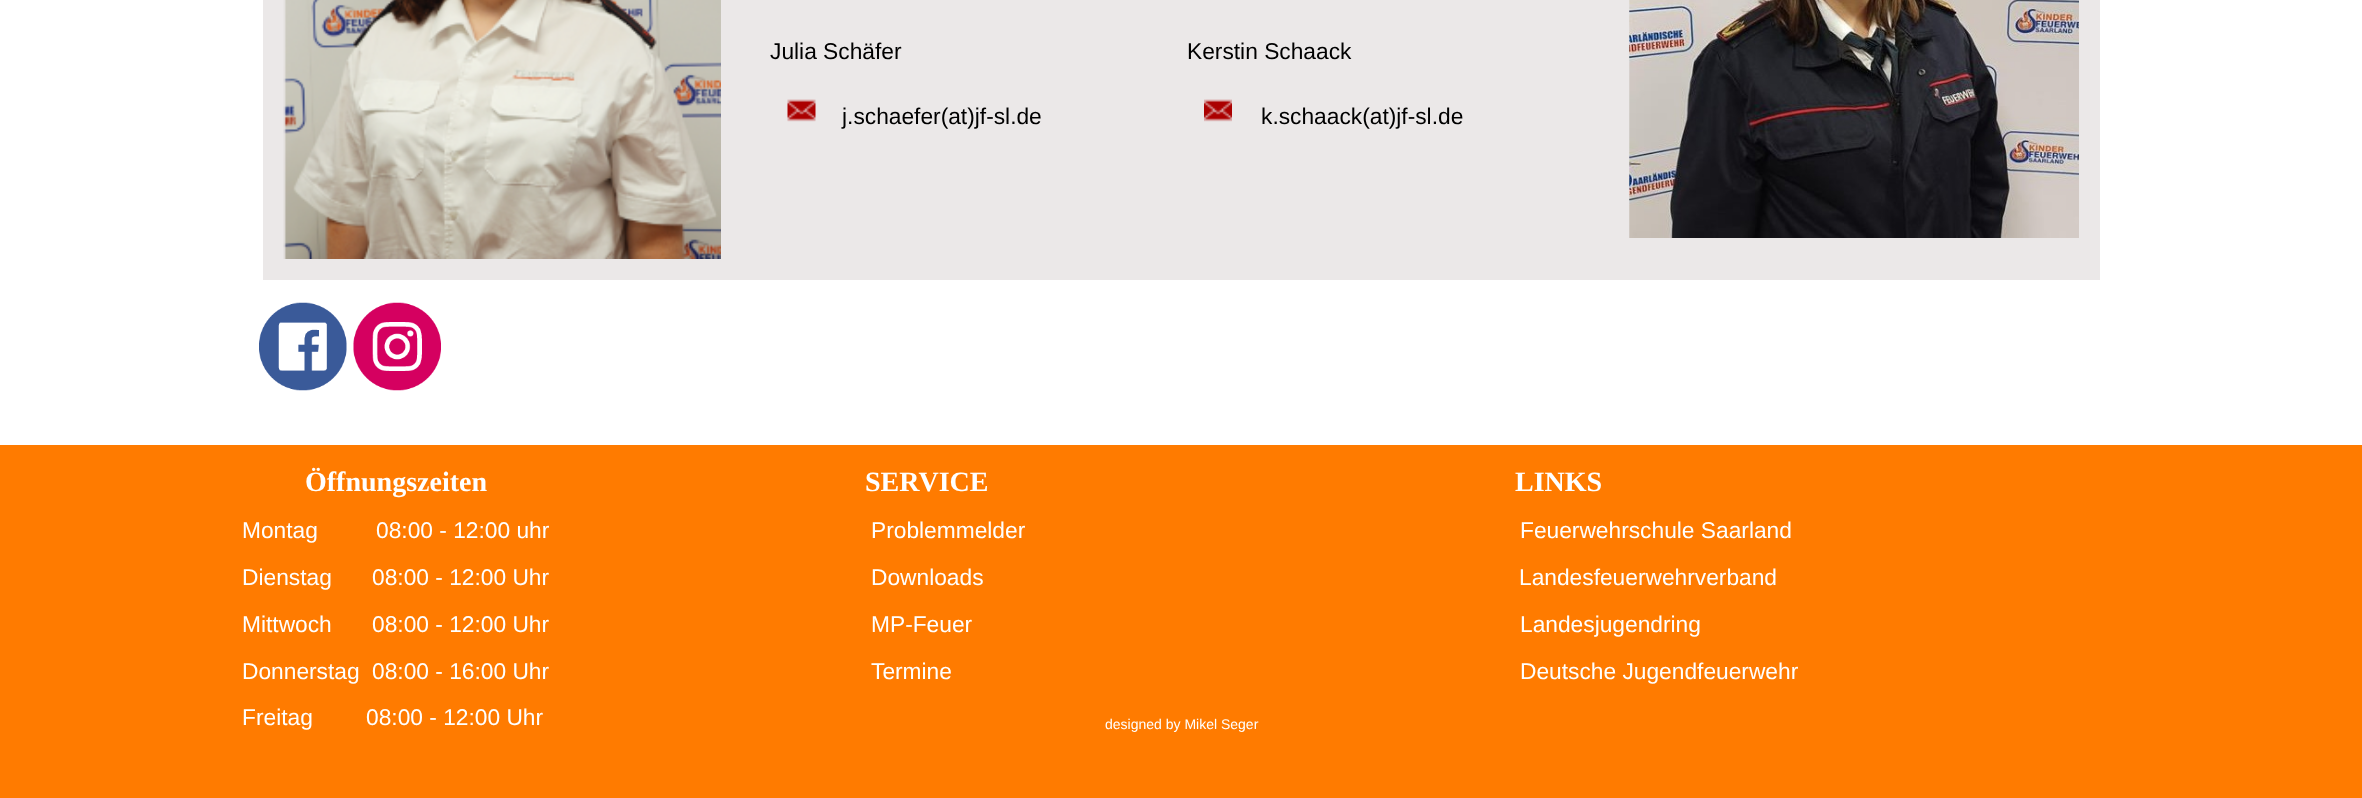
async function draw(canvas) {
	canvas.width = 2362;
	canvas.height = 798;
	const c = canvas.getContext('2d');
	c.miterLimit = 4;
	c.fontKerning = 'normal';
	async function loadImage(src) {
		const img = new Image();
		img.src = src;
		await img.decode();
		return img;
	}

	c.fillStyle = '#fff';
	c.fillRect(0, 0, 2362, 798);
	c.fillStyle = '#ebe8e8';
	c.fillRect(263, 0, 1837, 280);
	c.drawImage(await loadImage('img1.png'), 283, 0, 438, 259);
	c.font = '22.75px Liberation Sans';
	c.fillStyle = '#000';
	c.fillText('Julia Schäfer', 770, 59);
	c.drawImage(await loadImage('img2.png'), 787, 99, 29, 23);
	c.fillText('j.schaefer(at)jf-sl.de', 842, 124);
	c.fillText('Kerstin Schaack', 1187, 59);
	c.drawImage(await loadImage('img3.png'), 1204, 99, 28, 23);
	c.fillText('k.schaack(at)jf-sl.de', 1261, 124);
	c.drawImage(await loadImage('img4.png'), 1629, 0, 450, 238);
	c.drawImage(await loadImage('img5.png'), 259, 302, 88, 89);
	c.drawImage(await loadImage('img6.png'), 353, 302, 88, 89);
	c.fillStyle = '#ff7b00';
	c.fillRect(0, 445, 2362, 353);
	c.font = 'bold 28px Liberation Serif';
	c.fillStyle = '#fff';
	c.fillText('Öffnungszeiten', 305, 491);
	c.font = '22.75px Liberation Sans';
	for (const [text, x, y] of [
		['Montag', 242, 538],
		['08:00 - 12:00 uhr', 376, 538],
		['Dienstag', 242, 585],
		['08:00 - 12:00 Uhr', 372, 585],
		['Mittwoch', 242, 632],
		['08:00 - 12:00 Uhr', 372, 632],
		['Donnerstag', 242, 679],
		['08:00 - 16:00 Uhr', 372, 679],
		['Freitag', 242, 725],
		['08:00 - 12:00 Uhr', 366, 725],
	]) {
		c.fillText(text, x, y);
	}
	c.font = 'bold 28px Liberation Serif';
	c.fillText('SERVICE', 865, 491);
	c.font = '22.75px Liberation Sans';
	for (const [text, x, y] of [
		['Problemmelder', 871, 538],
		['Downloads', 871, 585],
		['MP-Feuer', 871, 632],
		['Termine', 871, 679],
	]) {
		c.fillText(text, x, y);
	}
	c.font = '14px Liberation Sans';
	c.fillText('designed by Mikel Seger', 1105, 729);
	c.font = 'bold 28px Liberation Serif';
	c.fillText('LINKS', 1515, 491);
	c.font = '22.75px Liberation Sans';
	for (const [text, x, y] of [
		['Feuerwehrschule Saarland', 1520, 538],
		['Landesfeuerwehrverband', 1519, 585],
		['Landesjugendring', 1520, 632],
		['Deutsche Jugendfeuerwehr', 1520, 679],
	]) {
		c.fillText(text, x, y);
	}
}

draw(document.querySelector('canvas'));
